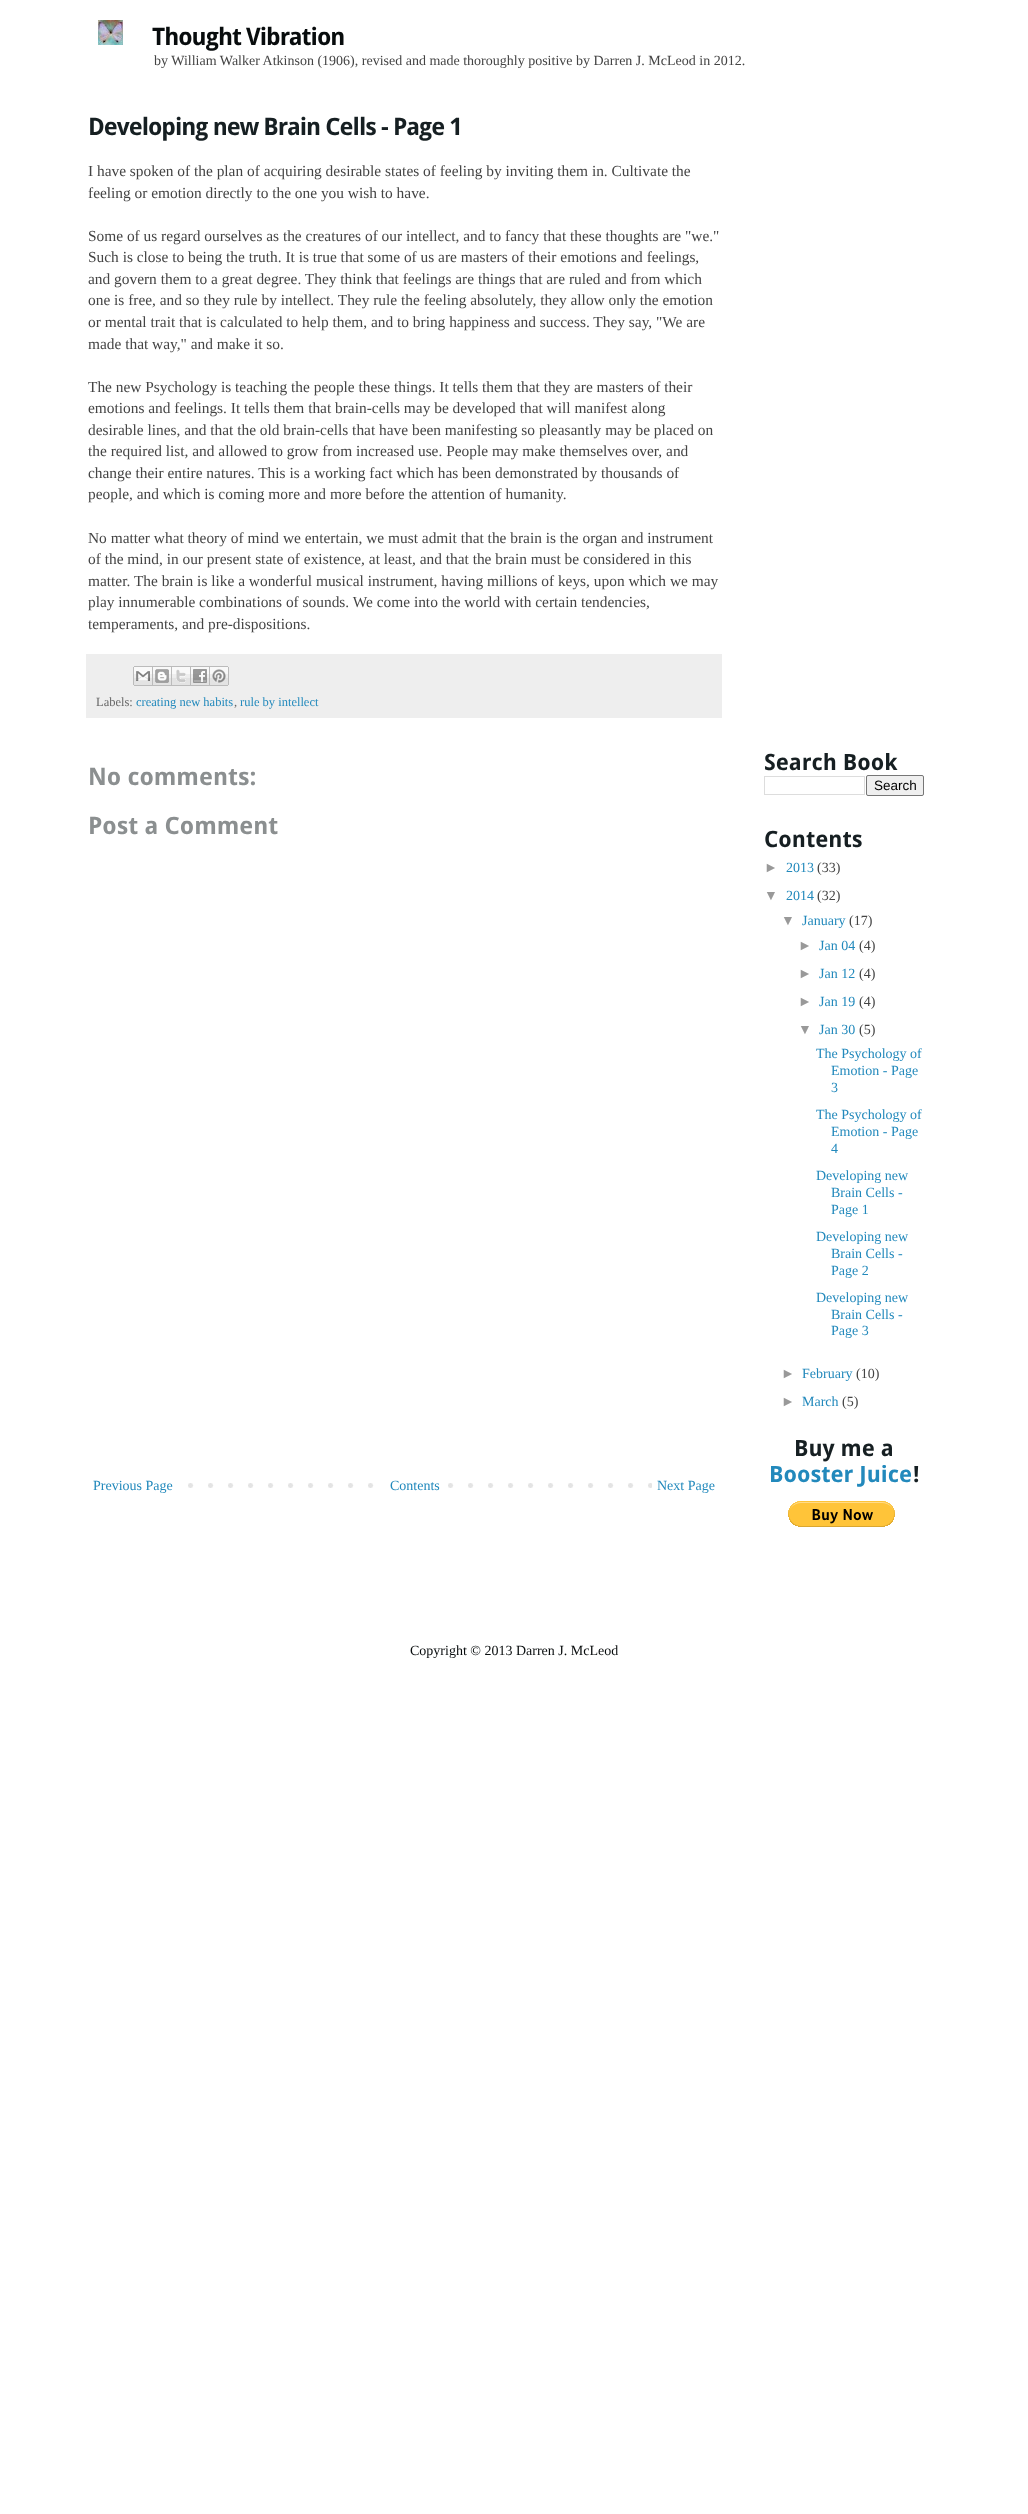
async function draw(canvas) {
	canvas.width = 1028;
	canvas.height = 2514;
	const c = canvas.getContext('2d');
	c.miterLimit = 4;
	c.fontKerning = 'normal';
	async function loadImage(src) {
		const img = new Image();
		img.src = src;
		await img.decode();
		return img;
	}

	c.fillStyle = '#fff';
	c.fillRect(0, 0, 1028, 2514);
	c.drawImage(await loadImage('img1.png'), 98, 20, 25, 25);
	c.letterSpacing = '-1px';
	c.font = 'bold 24px Droid Sans';
	c.fillStyle = '#080c0d';
	c.fillText('Thought Vibration', 152, 45);
	c.letterSpacing = '0px';
	c.font = '14px Liberation Serif';
	c.fillStyle = '#444';
	c.fillText('by William Walker Atkinson (1906), revised and made thoroughly positive by Darren J. McLeod in 2012.', 154, 65);
	c.letterSpacing = '-1px';
	c.font = 'bold 24px Droid Sans';
	c.fillStyle = '#161f22';
	c.fillText('Developing new Brain Cells - Page 1', 88, 135);
	c.letterSpacing = '0px';
	c.font = '15.4px Liberation Serif';
	c.fillStyle = '#444';
	for (const [text, x, y] of [
		['I have spoken of the plan of acquiring desirable states of feeling by inviting them in. Cultivate the', 88, 176],
		['feeling or emotion directly to the one you wish to have.', 88, 198],
		['Some of us regard ourselves as the creatures of our intellect, and to fancy that these thoughts are "we."', 88, 241],
		['Such is close to being the truth. It is true that some of us are masters of their emotions and feelings,', 88, 262],
		['and govern them to a great degree. They think that feelings are things that are ruled and from which', 88, 284],
		['one is free, and so they rule by intellect. They rule the feeling absolutely, they allow only the emotion', 88, 305],
		['or mental trait that is calculated to help them, and to bring happiness and success. They say, "We are', 88, 327],
		['made that way," and make it so.', 88, 349],
		['The new Psychology is teaching the people these things. It tells them that they are masters of their', 88, 392],
		['emotions and feelings. It tells them that brain-cells may be developed that will manifest along', 88, 413],
		['desirable lines, and that the old brain-cells that have been manifesting so pleasantly may be placed on', 88, 435],
		['the required list, and allowed to grow from increased use. People may make themselves over, and', 88, 456],
		['change their entire natures. This is a working fact which has been demonstrated by thousands of', 88, 478],
		['people, and which is coming more and more before the attention of humanity.', 88, 499],
		['No matter what theory of mind we entertain, we must admit that the brain is the organ and instrument', 88, 543],
		['of the mind, in our present state of existence, at least, and that the brain must be considered in this', 88, 564],
		['matter. The brain is like a wonderful musical instrument, having millions of keys, upon which we may', 88, 586],
		['play innumerable combinations of sounds. We come into the world with certain tendencies,', 88, 607],
		['temperaments, and pre-dispositions.', 88, 629],
	]) {
		c.fillText(text, x, y);
	}
	c.fillStyle = '#eee';
	c.fillRect(86, 654, 636, 64);
	c.drawImage(await loadImage('img2.png'), 133, 666, 20, 20);
	c.drawImage(await loadImage('img3.png'), 153, 666, 19, 20);
	c.drawImage(await loadImage('img4.png'), 172, 666, 19, 20);
	c.drawImage(await loadImage('img5.png'), 191, 666, 19, 20);
	c.drawImage(await loadImage('img6.png'), 210, 666, 19, 20);
	c.font = '12.5px Liberation Serif';
	c.fillStyle = '#666';
	c.fillText('Labels:', 96, 706);
	c.fillStyle = '#2289bc';
	c.fillText('creating new habits', 136, 706);
	c.fillStyle = '#666';
	c.fillText(',', 234, 706);
	c.fillStyle = '#2289bc';
	c.fillText('rule by intellect', 240, 706);
	c.font = 'bold 24px Droid Sans';
	c.fillStyle = '#8b8f90';
	c.fillText('No comments:', 88, 785);
	c.fillText('Post a Comment', 88, 834);
	c.drawImage(await loadImage('img7.png'), 188, 1483, 464, 5);
	c.font = '14px Liberation Serif';
	c.fillStyle = '#2289bc';
	c.fillText('Previous Page', 93, 1490);
	c.fillStyle = '#fff';
	c.fillRect(388, 1483, 46, 5);
	c.fillStyle = '#2289bc';
	c.fillText('Contents', 390, 1490);
	c.fillText('Next Page', 657, 1490);
	c.font = 'bold 22.5px Droid Sans';
	c.fillStyle = '#161f22';
	c.fillText('Search Book', 764, 770);
	c.strokeStyle = '#ddd';
	c.strokeRect(764.5, 776.5, 100, 18);
	c.fillStyle = '#efefef';
	c.beginPath();
	c.roundRect(866.5, 775.5, 57, 20, 1.5);
	c.fill();
	c.strokeStyle = '#767676';
	c.stroke();
	c.font = '13.5px Liberation Sans';
	c.fillStyle = '#000';
	c.fillText('Search', 874, 790);
	c.font = 'bold 22.5px Droid Sans';
	c.fillStyle = '#161f22';
	c.fillText('Contents', 764, 847);
	c.font = '14px Liberation Sans';
	c.fillStyle = '#999';
	c.fillText('►', 764, 872);
	c.font = '14px Liberation Serif';
	c.fillStyle = '#2289bc';
	c.fillText('2013', 786, 872);
	c.fillStyle = '#444';
	c.fillText('(33)', 817, 872);
	c.font = '14px Liberation Sans';
	c.fillStyle = '#999';
	c.fillText('▼', 764, 900);
	c.font = '14px Liberation Serif';
	c.fillStyle = '#2289bc';
	c.fillText('2014', 786, 900);
	c.fillStyle = '#444';
	c.fillText('(32)', 817, 900);
	c.font = '14px Liberation Sans';
	c.fillStyle = '#999';
	c.fillText('▼', 781, 925);
	c.font = '14px Liberation Serif';
	c.fillStyle = '#2289bc';
	c.fillText('January', 802, 925);
	c.fillStyle = '#444';
	c.fillText('(17)', 849, 925);
	c.font = '14px Liberation Sans';
	c.fillStyle = '#999';
	c.fillText('►', 798, 950);
	c.font = '14px Liberation Serif';
	c.fillStyle = '#2289bc';
	c.fillText('Jan 04', 819, 950);
	c.fillStyle = '#444';
	c.fillText('(4)', 859, 950);
	c.font = '14px Liberation Sans';
	c.fillStyle = '#999';
	c.fillText('►', 798, 978);
	c.font = '14px Liberation Serif';
	c.fillStyle = '#2289bc';
	c.fillText('Jan 12', 819, 978);
	c.fillStyle = '#444';
	c.fillText('(4)', 859, 978);
	c.font = '14px Liberation Sans';
	c.fillStyle = '#999';
	c.fillText('►', 798, 1006);
	c.font = '14px Liberation Serif';
	c.fillStyle = '#2289bc';
	c.fillText('Jan 19', 819, 1006);
	c.fillStyle = '#444';
	c.fillText('(4)', 859, 1006);
	c.font = '14px Liberation Sans';
	c.fillStyle = '#999';
	c.fillText('▼', 798, 1034);
	c.font = '14px Liberation Serif';
	c.fillStyle = '#2289bc';
	c.fillText('Jan 30', 819, 1034);
	c.fillStyle = '#444';
	c.fillText('(5)', 859, 1034);
	c.fillStyle = '#2289bc';
	for (const [text, x, y] of [
		['The Psychology of', 816, 1058],
		['Emotion - Page', 831, 1075],
		['3', 831, 1092],
		['The Psychology of', 816, 1119],
		['Emotion - Page', 831, 1136],
		['4', 831, 1153],
		['Developing new', 816, 1180],
		['Brain Cells -', 831, 1197],
		['Page 1', 831, 1214],
		['Developing new', 816, 1241],
		['Brain Cells -', 831, 1258],
		['Page 2', 831, 1275],
		['Developing new', 816, 1302],
		['Brain Cells -', 831, 1319],
		['Page 3', 831, 1335],
	]) {
		c.fillText(text, x, y);
	}
	c.font = '14px Liberation Sans';
	c.fillStyle = '#999';
	c.fillText('►', 781, 1378);
	c.font = '14px Liberation Serif';
	c.fillStyle = '#2289bc';
	c.fillText('February', 802, 1378);
	c.fillStyle = '#444';
	c.fillText('(10)', 856, 1378);
	c.font = '14px Liberation Sans';
	c.fillStyle = '#999';
	c.fillText('►', 781, 1406);
	c.font = '14px Liberation Serif';
	c.fillStyle = '#2289bc';
	c.fillText('March', 802, 1406);
	c.fillStyle = '#444';
	c.fillText('(5)', 842, 1406);
	c.font = 'bold 22.5px Droid Sans';
	c.fillStyle = '#161f22';
	c.fillText('Buy me a', 794, 1456);
	c.fillStyle = '#2289bc';
	c.fillText('Booster Juice', 769, 1482);
	c.fillStyle = '#161f22';
	c.fillText('!', 913, 1482);
	c.drawImage(await loadImage('img8.png'), 788, 1501, 107, 26);
	c.font = '14px Liberation Serif';
	c.fillStyle = '#080c0d';
	c.fillText('Copyright © 2013 Darren J. McLeod', 410, 1655);
}

draw(document.querySelector('canvas'));
